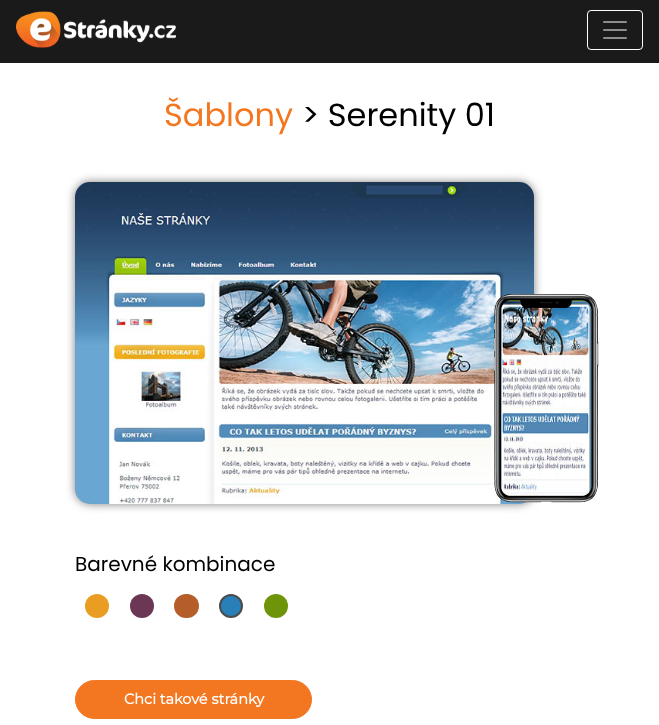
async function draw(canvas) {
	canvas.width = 659;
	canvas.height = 725;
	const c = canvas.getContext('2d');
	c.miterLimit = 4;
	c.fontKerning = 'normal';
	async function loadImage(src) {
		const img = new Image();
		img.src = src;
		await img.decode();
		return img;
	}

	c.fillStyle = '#fff';
	c.fillRect(0, 0, 659, 725);
	c.fillStyle = '#1a1a1a';
	c.fillRect(0, 0, 659, 63);
	c.drawImage(await loadImage('img1.png'), 16, 11, 160, 38);
	c.beginPath();
	c.roundRect(587.5, 10.5, 55, 39, 3.5);
	c.strokeStyle = '#fff';
	c.stroke();
	c.drawImage(await loadImage('img2.png'), 603, 21, 24, 18);
	c.font = '32px Poppins';
	c.fillStyle = '#f37720';
	c.fillText('Šablony', 164, 126);
	c.fillStyle = '#000';
	c.fillText('> Serenity 01', 302, 126);
	c.fillStyle = '#808080';
	c.filter = 'blur(5px)';
	c.beginPath();
	c.roundRect(75, 182, 459, 322, 15);
	c.fill();
	c.filter = 'none';
	c.drawImage(await loadImage('img3.png'), 75, 182, 459, 322);
	c.drawImage(await loadImage('img4.png'), 493, 294, 106, 209);
	c.drawImage(await loadImage('img5.png'), 493, 294, 106, 209);
	c.font = '20px Poppins';
	c.fillStyle = '#000';
	c.fillText('Barevné kombinace', 75, 571);
	c.fillStyle = '#e99d22';
	c.beginPath();
	c.arc(97, 606, 12, 0, 2 * Math.PI);
	c.fill();
	c.fillStyle = '#6c3755';
	c.beginPath();
	c.arc(142, 606, 12, 0, 2 * Math.PI);
	c.fill();
	c.fillStyle = '#b65e2a';
	c.beginPath();
	c.roundRect(174, 594, 25, 24, 12);
	c.fill();
	c.fillStyle = '#2980b9';
	c.beginPath();
	c.arc(231, 606, 11, 0, 2 * Math.PI);
	c.fill();
	c.strokeStyle = '#4b4b4b';
	c.lineWidth = 2;
	c.stroke();
	c.fillStyle = '#6e9409';
	c.beginPath();
	c.arc(276, 606, 12, 0, 2 * Math.PI);
	c.fill();
	c.fillStyle = '#f37720';
	c.beginPath();
	c.roundRect(75.5, 680.5, 236, 38, 19);
	c.fill();
	c.strokeStyle = '#f37720';
	c.lineWidth = 1;
	c.stroke();
	c.font = 'bold 14.5px Montserrat';
	c.fillStyle = '#fff';
	c.fillText('Chci takové stránky', 124, 704);
}

draw(document.querySelector('canvas'));
